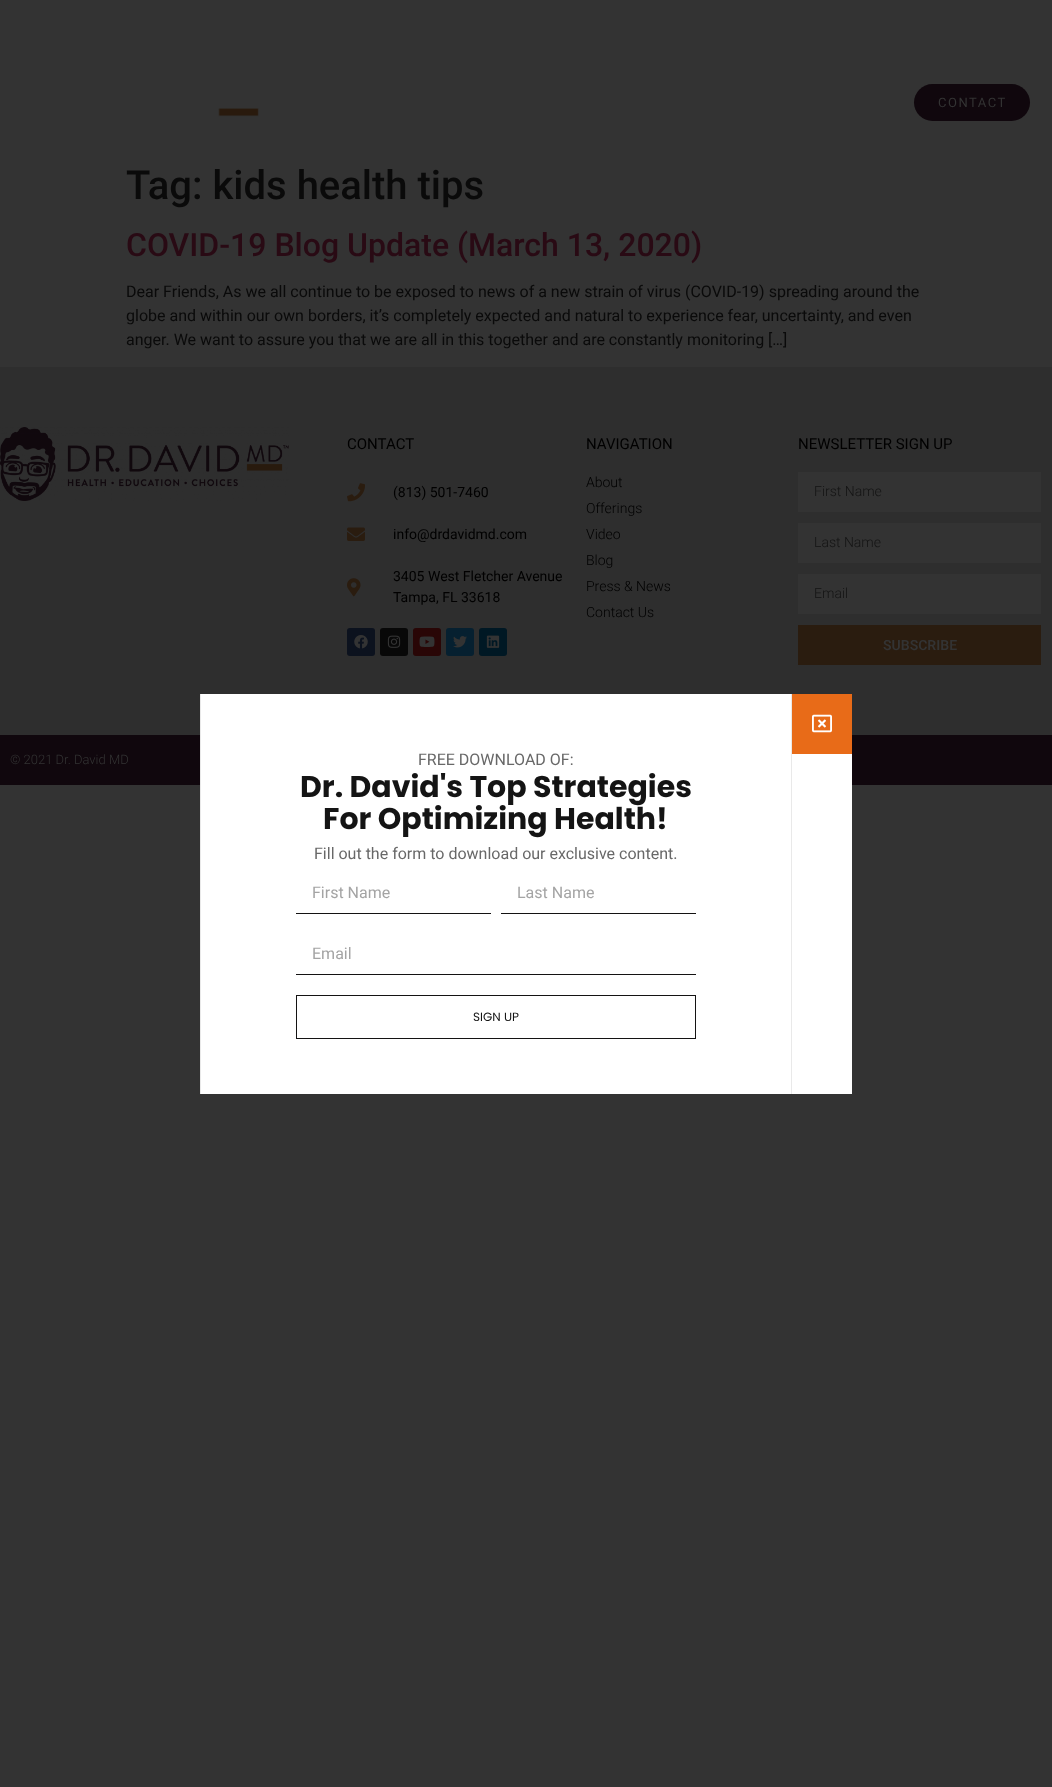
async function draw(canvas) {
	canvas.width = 1052;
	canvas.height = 1787;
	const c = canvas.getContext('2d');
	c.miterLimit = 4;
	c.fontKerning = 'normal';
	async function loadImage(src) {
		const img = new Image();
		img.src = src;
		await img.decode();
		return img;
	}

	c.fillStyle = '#333';
	c.fillRect(0, 0, 1052, 1787);
	c.fillStyle = '#10070d';
	c.beginPath();
	c.roundRect(914, 84, 116, 37, 18.5);
	c.fill();
	c.letterSpacing = '1.5px';
	c.font = '13px Roboto';
	c.fillStyle = '#333';
	c.fillText('CONTACT', 938, 107);
	c.drawImage(await loadImage('img1.png'), 218, 108, 41, 9);
	c.letterSpacing = '0px';
	c.font = '500 40px Roboto';
	c.fillStyle = '#0a0a0a';
	c.fillText('Tag: kids health tips', 126, 199);
	c.font = '500 32px Roboto';
	c.fillStyle = '#290a14';
	c.fillText('COVID-19 Blog Update (March 13, 2020)', 126, 256);
	c.font = '16px Roboto';
	c.fillStyle = '#0a0a0a';
	for (const [text, x, y] of [
		['Dear Friends, As we all continue to be exposed to news of a new strain of virus (COVID-19) spreading around the', 126, 297],
		['globe and within our own borders, it’s completely expected and natural to experience fear, uncertainty, and even', 126, 321],
		['anger. We want to assure you that we are all in this together and are constantly monitoring […]', 126, 345],
	]) {
		c.fillText(text, x, y);
	}
	c.fillStyle = '#2e2e2e';
	c.fillRect(0, 367, 1052, 368);
	c.drawImage(await loadImage('img2.png'), 0, 427, 289, 74);
	c.font = '15px Roboto';
	c.fillStyle = '#010000';
	c.fillText('CONTACT', 347, 449);
	c.drawImage(await loadImage('img3.png'), 347, 483, 18, 19);
	c.font = '14px Roboto';
	c.fillText('(813) 501-7460', 393, 497);
	c.drawImage(await loadImage('img4.png'), 347, 527, 18, 14);
	c.fillText('info@drdavidmd.com', 393, 539);
	c.drawImage(await loadImage('img5.png'), 347, 578, 14, 19);
	c.fillText('3405 West Fletcher Avenue', 393, 581);
	c.fillText('Tampa, FL 33618', 393, 602);
	c.fillStyle = '#0c121e';
	c.beginPath();
	c.roundRect(347, 628, 28, 28, 3);
	c.fill();
	c.drawImage(await loadImage('img6.png'), 354, 635, 14, 14);
	c.fillStyle = '#080808';
	c.beginPath();
	c.roundRect(380, 628, 28, 28, 3);
	c.fill();
	c.drawImage(await loadImage('img7.png'), 387, 635, 14, 13);
	c.fillStyle = '#290606';
	c.beginPath();
	c.roundRect(413, 628, 28, 28, 3);
	c.fill();
	c.drawImage(await loadImage('img8.png'), 419, 636, 16, 11);
	c.fillStyle = '#062030';
	c.beginPath();
	c.roundRect(446, 628, 28, 28, 3);
	c.fill();
	c.drawImage(await loadImage('img9.png'), 453, 636, 14, 12);
	c.fillStyle = '#001824';
	c.beginPath();
	c.roundRect(479, 628, 28, 28, 3);
	c.fill();
	c.drawImage(await loadImage('img10.png'), 486, 635, 14, 13);
	c.font = '15px Roboto';
	c.fillStyle = '#010000';
	c.fillText('NAVIGATION', 586, 449);
	c.font = '300 14px Roboto';
	for (const [text, x, y] of [
		['About', 586, 487],
		['Offerings', 586, 513],
		['Video', 586, 539],
		['Blog', 586, 565],
		['Press & News', 586, 591],
		['Contact Us', 586, 617],
	]) {
		c.fillText(text, x, y);
	}
	c.font = '15px Roboto';
	c.fillText('NEWSLETTER SIGN UP', 798, 449);
	c.fillStyle = '#333';
	c.fillRect(798, 472, 243, 40);
	c.font = '300 14px Roboto';
	c.fillStyle = '#141414';
	c.fillText('First Name', 814, 496);
	c.fillStyle = '#333';
	c.fillRect(798, 523, 243, 40);
	c.fillStyle = '#141414';
	c.fillText('Last Name', 814, 547);
	c.fillStyle = '#333';
	c.fillRect(798, 574, 243, 40);
	c.fillStyle = '#141414';
	c.fillText('Email', 814, 598);
	c.fillStyle = '#2a1c0f';
	c.fillRect(798, 625, 243, 40);
	c.font = '600 14px Roboto';
	c.fillStyle = '#333';
	c.fillText('SUBSCRIBE', 883, 650);
	c.fillStyle = '#10070d';
	c.fillRect(0, 735, 1052, 50);
	c.font = '300 13px Roboto';
	c.fillStyle = '#333';
	c.fillText('© 2021 Dr. David MD', 10, 764);
	c.fillStyle = '#fff';
	c.fillRect(201, 694, 651, 400);
	c.fillStyle = '#e86b18';
	c.fillRect(792, 694, 60, 60);
	c.drawImage(await loadImage('img11.png'), 812, 714, 20, 19);
	c.fillStyle = '#e9e9e9';
	c.fillRect(791, 694, 1, 400);
	c.fillRect(200, 694, 1, 400);
	c.font = '16px Roboto';
	c.fillStyle = '#686868';
	c.fillText('FREE DOWNLOAD OF:', 418, 765);
	c.font = 'bold 30px Poppins';
	c.fillStyle = '#141414';
	c.fillText('Dr. David\'s Top Strategies', 300, 797);
	c.fillText('For Optimizing Health!', 323, 829);
	c.font = '16px Roboto';
	c.fillStyle = '#686868';
	c.fillText('Fill out the form to download our exclusive content.', 314, 859);
	c.fillStyle = '#141313';
	c.fillRect(296, 913, 195, 1);
	c.fillStyle = '#a4a4a4';
	c.fillText('First Name', 312, 898);
	c.fillStyle = '#141313';
	c.fillRect(501, 913, 195, 1);
	c.fillStyle = '#a4a4a4';
	c.fillText('Last Name', 517, 898);
	c.fillStyle = '#141313';
	c.fillRect(296, 974, 400, 1);
	c.fillStyle = '#a4a4a4';
	c.fillText('Email', 312, 959);
	c.strokeStyle = '#141313';
	c.strokeRect(296.5, 995.5, 399, 43);
	c.font = '12px Poppins';
	c.fillStyle = '#141414';
	c.fillText('SIGN UP', 473, 1021);
}

draw(document.querySelector('canvas'));
